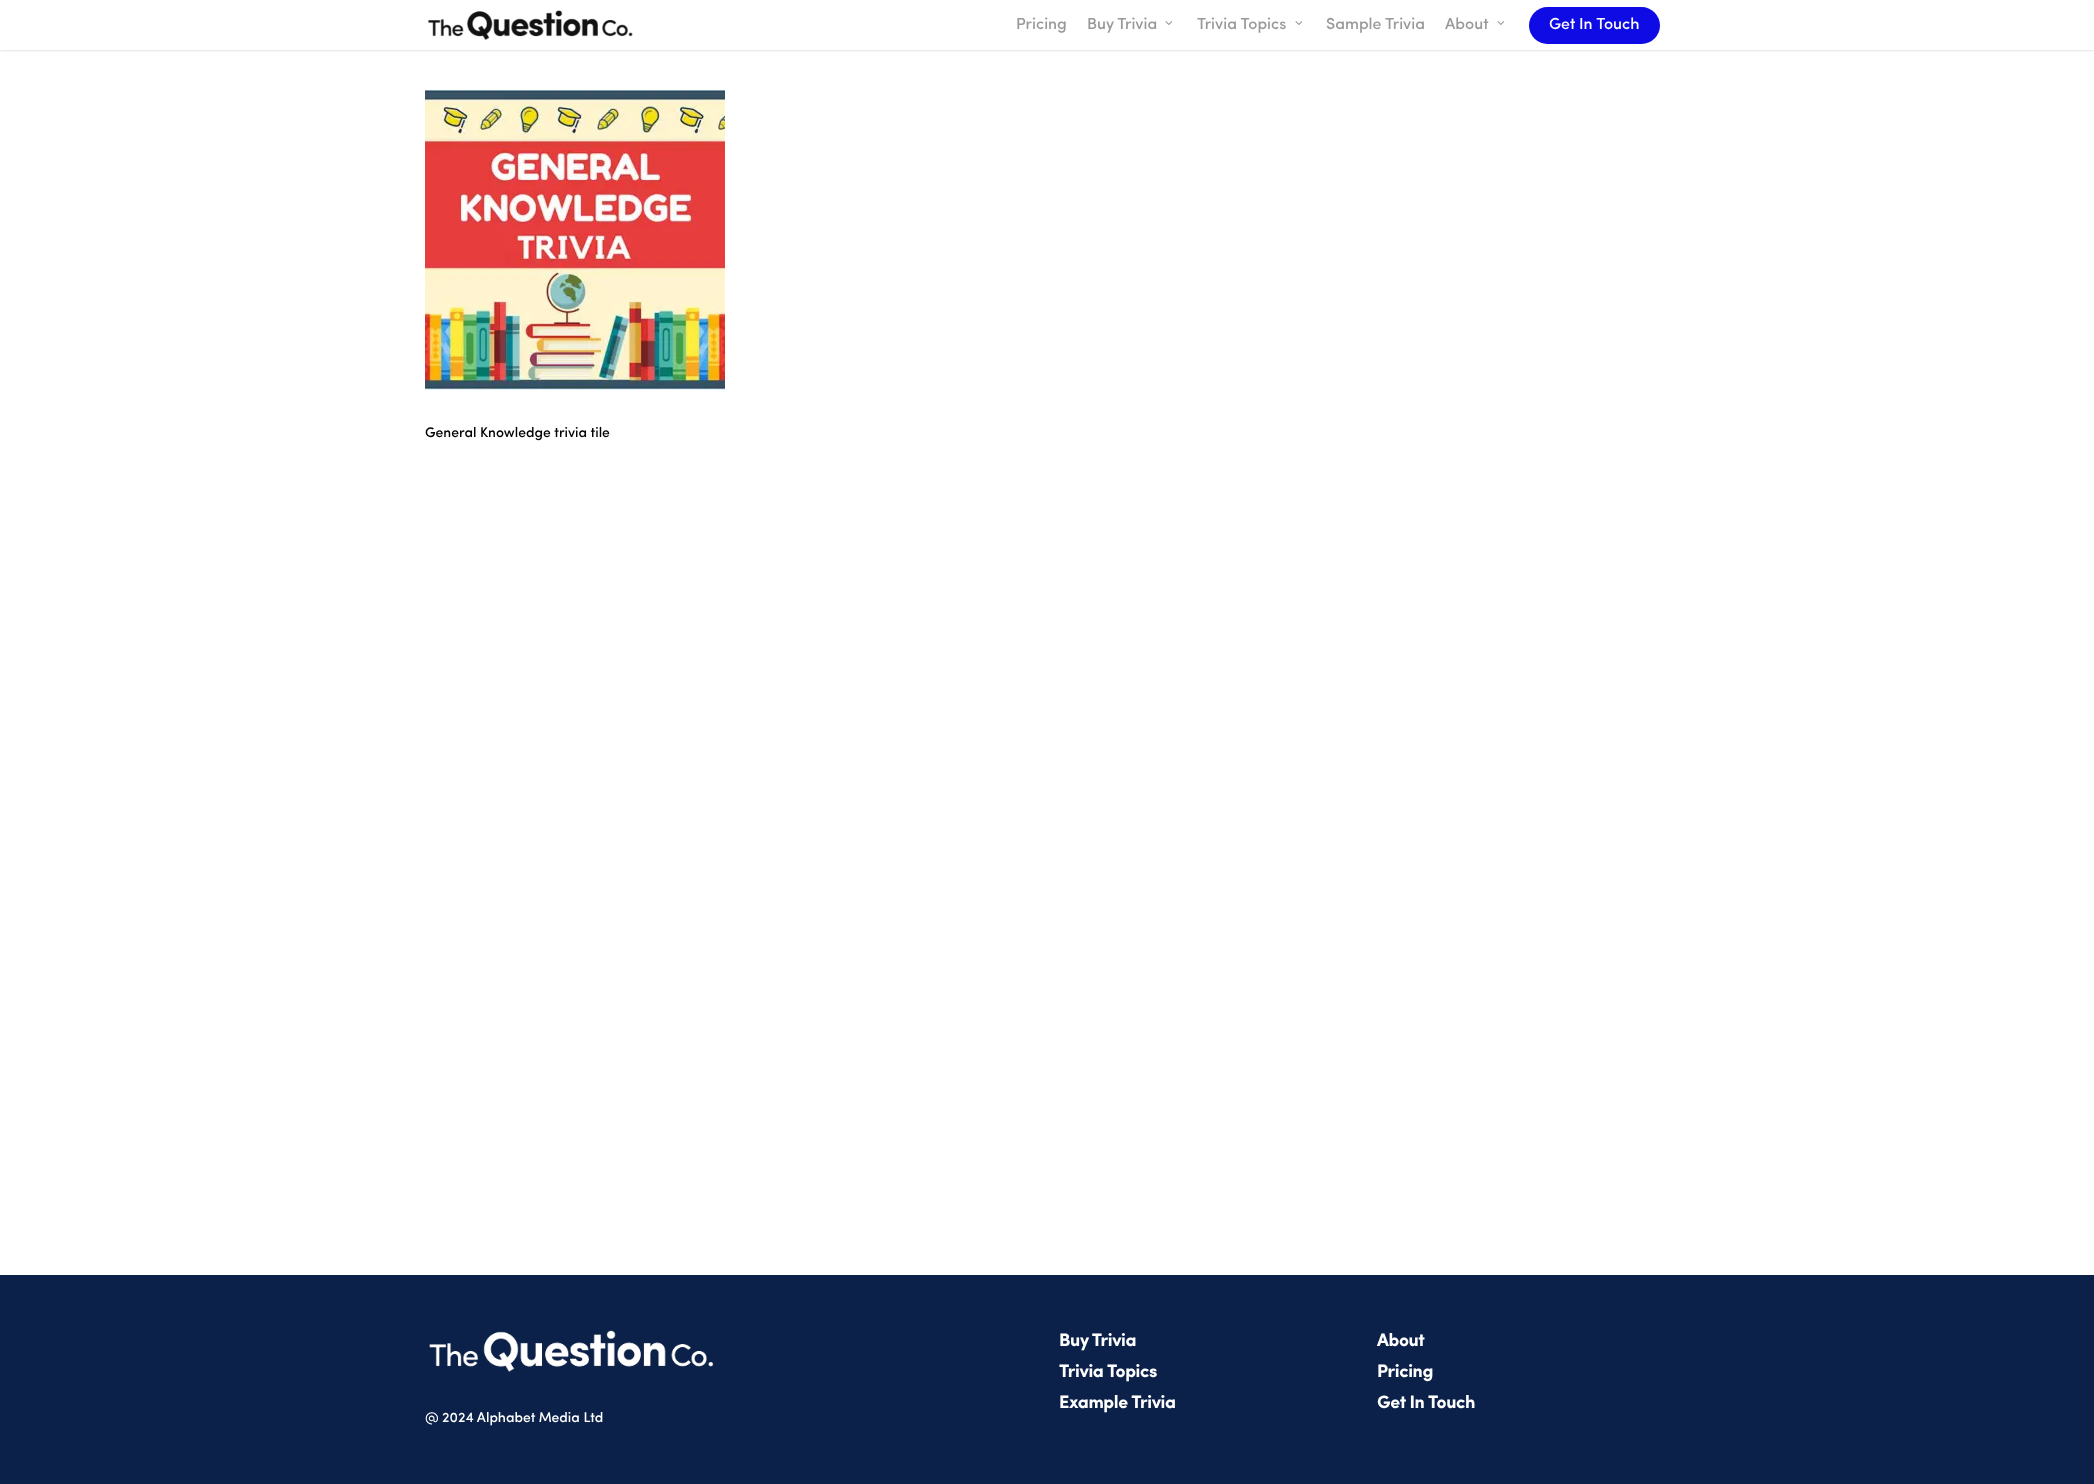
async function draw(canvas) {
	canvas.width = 2094;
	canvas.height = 1484;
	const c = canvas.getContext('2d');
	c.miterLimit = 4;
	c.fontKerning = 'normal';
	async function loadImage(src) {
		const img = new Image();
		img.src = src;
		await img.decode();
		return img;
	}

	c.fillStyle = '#fff';
	c.fillRect(0, 0, 2094, 1484);
	c.save();
	c.beginPath();
	c.rect(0, 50, 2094, 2);
	c.clip();
	c.fillStyle = '#00000038';
	c.filter = 'blur(1.5px)';
	c.beginPath();
	c.rect(0, 0, 2094, 50);
	c.fill();
	c.filter = 'none';
	c.restore();
	c.drawImage(await loadImage('img1.png'), 428, 10, 205, 30);
	c.font = '500 16px Sofia';
	c.fillStyle = '#999';
	c.fillText('Pricing', 1016, 29);
	c.fillText('Buy Trivia', 1087, 29);
	c.drawImage(await loadImage('img2.png'), 1165, 21, 8, 4);
	c.fillText('Trivia Topics', 1197, 29);
	c.drawImage(await loadImage('img2.png'), 1295, 21, 8, 4);
	c.fillText('Sample Trivia', 1326, 29);
	c.fillText('About', 1445, 29);
	c.drawImage(await loadImage('img2.png'), 1497, 21, 8, 4);
	c.fillStyle = '#0f0be5';
	c.beginPath();
	c.roundRect(1529, 7, 131, 37, 18.5);
	c.fill();
	c.fillStyle = '#fff';
	c.fillText('Get In Touch', 1549, 29);
	c.drawImage(await loadImage('img3.png'), 425, 90, 300, 300);
	c.font = '500 14px Sofia';
	c.fillStyle = '#000';
	c.fillText('General Knowledge trivia tile', 425, 437);
	c.fillStyle = '#0b2149';
	c.fillRect(0, 1275, 2094, 209);
	c.letterSpacing = '-0.4px';
	c.font = 'bold 18px Sofia';
	c.fillStyle = '#fff';
	for (const [text, x, y] of [
		['Buy Trivia', 1059, 1346],
		['Trivia Topics', 1059, 1377],
		['Example Trivia', 1059, 1408],
		['About', 1377, 1346],
		['Pricing', 1377, 1377],
		['Get In Touch', 1377, 1408],
	]) {
		c.fillText(text, x, y);
	}
	c.drawImage(await loadImage('img4.png'), 429, 1330, 285, 42);
	c.letterSpacing = '0px';
	c.font = '500 14px Sofia';
	c.fillText('@ 2024 Alphabet Media Ltd', 425, 1422);
}

draw(document.querySelector('canvas'));
